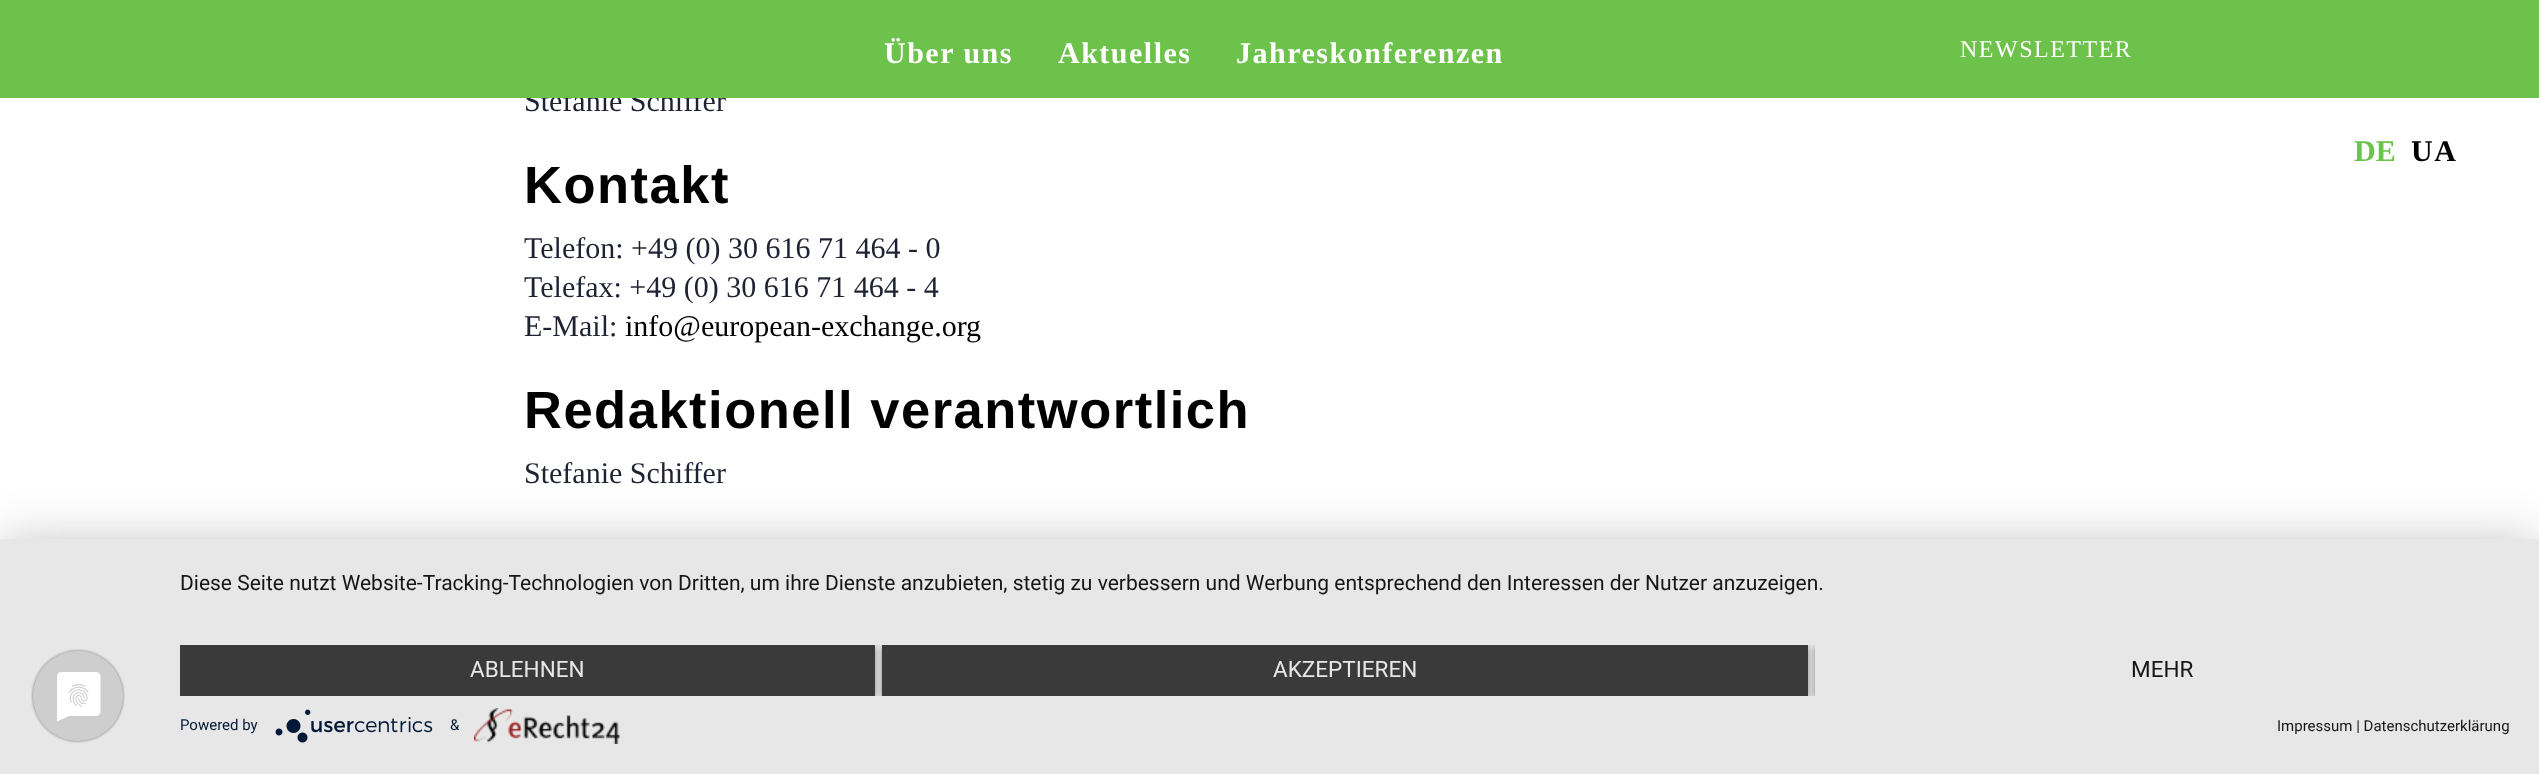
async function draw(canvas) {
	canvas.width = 2539;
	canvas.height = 774;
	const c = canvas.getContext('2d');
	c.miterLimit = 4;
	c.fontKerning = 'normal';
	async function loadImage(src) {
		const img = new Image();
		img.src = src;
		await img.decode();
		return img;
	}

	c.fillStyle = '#fff';
	c.fillRect(0, 0, 2539, 774);
	c.font = '30px Liberation Serif';
	c.fillStyle = '#1e2332';
	c.fillText('Stefanie Schiffer', 524, 111);
	c.fillStyle = '#6cc24a';
	c.fillRect(0, 0, 2539, 98);
	c.letterSpacing = '1.5px';
	c.font = 'bold 30px Liberation Serif';
	c.fillStyle = '#fff';
	for (const [text, x, y] of [
		['Über uns', 884, 63],
		['Aktuelles', 1058, 63],
		['Jahreskonferenzen', 1236, 63],
	]) {
		c.fillText(text, x, y);
	}
	c.font = '24px Liberation Serif';
	c.fillText('NEWSLETTER', 1960, 57);
	c.font = 'bold 52.5px Liberation Sans';
	c.fillStyle = '#000';
	c.fillText('Kontakt', 524, 203);
	c.letterSpacing = '0px';
	c.font = '30px Liberation Serif';
	c.fillStyle = '#1e2332';
	for (const [text, x, y] of [
		['Telefon: +49 (0) 30 616 71 464 - 0', 524, 258],
		['Telefax: +49 (0) 30 616 71 464 - 4', 524, 297],
		['E-Mail:', 524, 336],
	]) {
		c.fillText(text, x, y);
	}
	c.fillStyle = '#000';
	c.fillText('info@european-exchange.org', 625, 336);
	c.letterSpacing = '1.5px';
	c.font = 'bold 52.5px Liberation Sans';
	c.fillText('Redaktionell verantwortlich', 524, 428);
	c.letterSpacing = '0px';
	c.font = '30px Liberation Serif';
	c.fillStyle = '#1e2332';
	c.fillText('Stefanie Schiffer', 524, 483);
	c.font = 'bold 30px Liberation Serif';
	c.fillStyle = '#6cc24a';
	c.fillText('DE', 2354, 161);
	c.letterSpacing = '1.5px';
	c.fillStyle = '#000';
	c.fillText('UA', 2411, 161);
	c.fillStyle = '#0000004d';
	c.filter = 'blur(27px)';
	c.beginPath();
	c.rect(0, 548, 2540, 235);
	c.fill();
	c.filter = 'none';
	c.fillStyle = '#e7e7e7';
	c.fillRect(0, 539, 2539, 235);
	c.drawImage(await loadImage('img1.png'), 31, 649, 94, 94);
	c.letterSpacing = '0px';
	c.font = '21px Roboto';
	c.fillStyle = '#161616';
	c.fillText('Diese Seite nutzt Website-Tracking-Technologien von Dritten, um ihre Dienste anzubieten, stetig zu verbessern und Werbung entsprechend den Interessen der Nutzer anzuzeigen.', 180, 590);
	c.save();
	c.beginPath();
	c.rect(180, 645, 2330, 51);
	c.clip();
	c.fillStyle = '#00000066';
	c.filter = 'blur(3px)';
	c.beginPath();
	c.rect(180, 647, 695, 51);
	c.fill();
	c.filter = 'none';
	c.restore();
	c.fillStyle = '#3a3a3a';
	c.fillRect(180, 645, 695, 51);
	c.font = '22.5px Roboto';
	c.fillStyle = '#e7e7e7';
	c.fillText('ABLEHNEN', 470, 677);
	c.save();
	c.beginPath();
	c.rect(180, 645, 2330, 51);
	c.clip();
	c.fillStyle = '#00000066';
	c.filter = 'blur(3px)';
	c.beginPath();
	c.rect(882, 647, 926, 51);
	c.fill();
	c.filter = 'none';
	c.restore();
	c.fillStyle = '#3a3a3a';
	c.fillRect(882, 645, 926, 51);
	c.fillStyle = '#e7e7e7';
	c.fillText('AKZEPTIEREN', 1273, 677);
	c.save();
	c.beginPath();
	c.rect(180, 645, 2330, 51);
	c.clip();
	c.fillStyle = '#00000066';
	c.filter = 'blur(3px)';
	c.beginPath();
	c.rect(1815, 647, 695, 51);
	c.fill();
	c.filter = 'none';
	c.restore();
	c.fillRect(1815, 645, 695, 51);
	c.fillStyle = '#161616';
	c.fillText('MEHR', 2131, 677);
	c.font = '15px Roboto';
	c.fillStyle = '#021836';
	c.fillText('Powered by', 180, 730);
	c.drawImage(await loadImage('img2.png'), 275, 709, 158, 34);
	c.fillText('&', 450, 730);
	c.drawImage(await loadImage('img3.png'), 474, 708, 146, 36);
	c.fillStyle = '#161616';
	c.fillText('Impressum | Datenschutzerklärung', 2277, 731);
}

draw(document.querySelector('canvas'));
